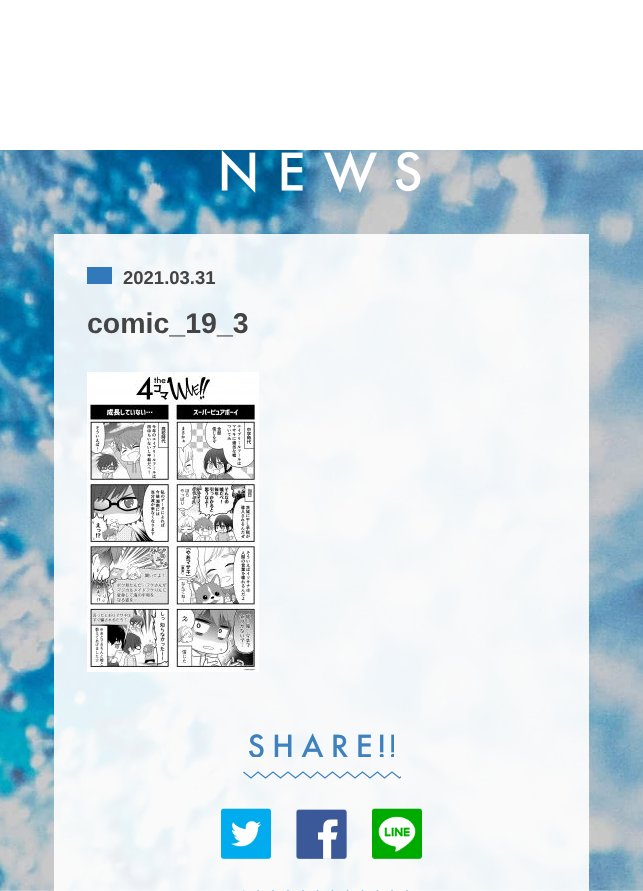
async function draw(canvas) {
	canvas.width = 643;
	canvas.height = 891;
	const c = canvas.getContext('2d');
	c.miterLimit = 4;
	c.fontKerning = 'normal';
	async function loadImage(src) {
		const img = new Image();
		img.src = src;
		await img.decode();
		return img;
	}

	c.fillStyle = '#fff';
	c.fillRect(0, 0, 643, 891);
	c.drawImage(await loadImage('img1.png'), 0, 150, 643, 741);
	c.drawImage(await loadImage('img2.png'), 221, 150, 200, 43);
	c.fillStyle = '#ffffffe6';
	c.fillRect(54, 234, 535, 657);
	c.fillStyle = '#3279bb';
	c.fillRect(87, 267, 25, 17);
	c.font = 'bold 18.5px Liberation Sans';
	c.fillStyle = '#444';
	c.fillText('2021.03.31', 123, 284);
	c.font = 'bold 28.5px Liberation Sans';
	c.fillText('comic_19_3', 87, 333);
	c.drawImage(await loadImage('img3.png'), 87, 372, 172, 300);
	c.drawImage(await loadImage('img4.png'), 249, 733, 145, 24);
	c.save();
	c.beginPath();
	c.rect(242, 771, 159, 8);
	c.clip();
	c.beginPath();
	c.moveTo(243.5, 772);
	c.lineTo(251, 778);
	c.lineTo(258, 772);
	c.lineTo(265.5, 778);
	c.lineTo(273, 772);
	c.lineTo(280.5, 778);
	c.lineTo(288, 772);
	c.lineTo(295.5, 778);
	c.lineTo(303, 772);
	c.lineTo(310.5, 778);
	c.lineTo(317.5, 772);
	c.lineTo(325, 778);
	c.lineTo(332.5, 772);
	c.lineTo(340, 778);
	c.lineTo(347.5, 772);
	c.lineTo(355, 778);
	c.lineTo(362.5, 772);
	c.lineTo(370, 778);
	c.lineTo(377.5, 772);
	c.lineTo(384.5, 778);
	c.lineTo(392, 772);
	c.lineTo(399.5, 778);
	c.lineTo(407, 772);
	c.lineTo(414.5, 778);
	c.strokeStyle = '#3e81bf';
	c.lineWidth = 1.2;
	c.stroke();
	c.restore();
	c.drawImage(await loadImage('img5.png'), 221, 808, 50, 51);
	c.drawImage(await loadImage('img6.png'), 296, 809, 51, 50);
	c.drawImage(await loadImage('img7.png'), 372, 808, 50, 51);
	c.beginPath();
	c.moveTo(243.5, 891);
	c.lineTo(251, 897);
	c.lineTo(258, 891);
	c.lineTo(265.5, 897);
	c.lineTo(273, 891);
	c.lineTo(280.5, 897);
	c.lineTo(288, 891);
	c.lineTo(295.5, 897);
	c.lineTo(303, 891);
	c.lineTo(310.5, 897);
	c.lineTo(317.5, 891);
	c.lineTo(325, 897);
	c.lineTo(332.5, 891);
	c.lineTo(340, 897);
	c.lineTo(347.5, 891);
	c.lineTo(355, 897);
	c.lineTo(362.5, 891);
	c.lineTo(370, 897);
	c.lineTo(377.5, 891);
	c.lineTo(384.5, 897);
	c.lineTo(392, 891);
	c.lineTo(399.5, 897);
	c.lineTo(407, 891);
	c.lineTo(414.5, 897);
	c.strokeStyle = '#3e81bf';
	c.lineWidth = 1.2;
	c.stroke();
}

draw(document.querySelector('canvas'));
